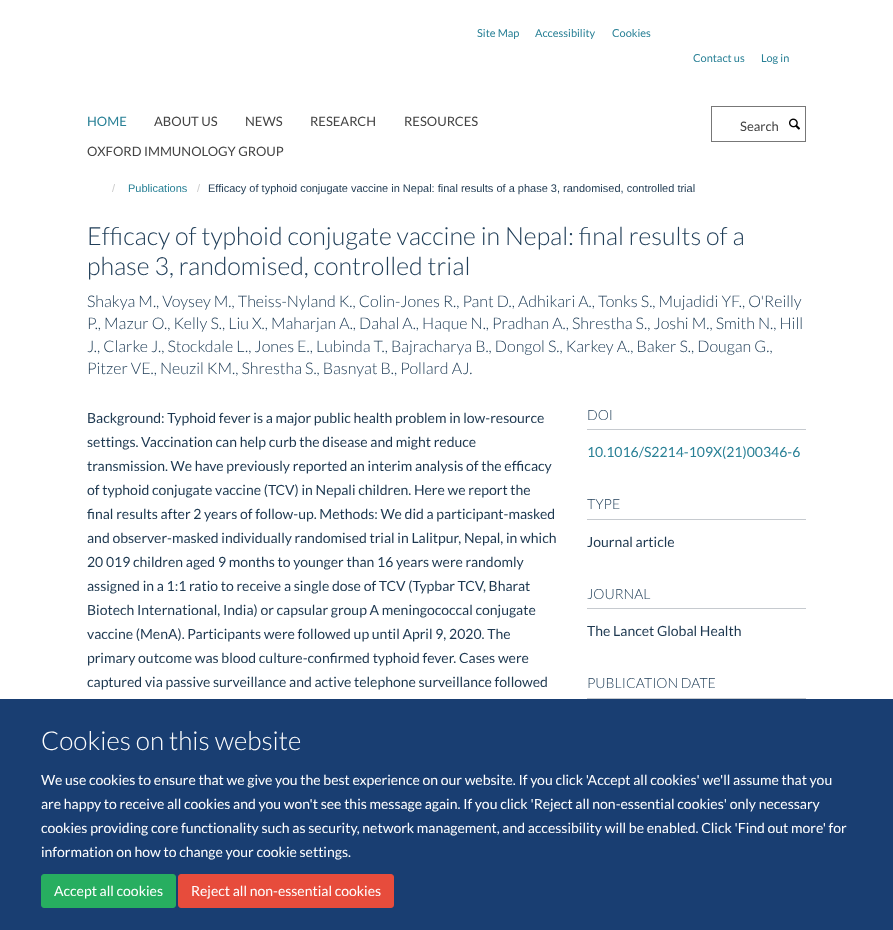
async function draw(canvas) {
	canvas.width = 893;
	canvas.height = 930;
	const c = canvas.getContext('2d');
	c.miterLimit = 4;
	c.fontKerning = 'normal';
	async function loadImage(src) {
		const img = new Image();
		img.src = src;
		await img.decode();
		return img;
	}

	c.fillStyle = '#fff';
	c.fillRect(0, 0, 893, 930);
	c.font = '11px Lato';
	c.fillStyle = '#298096';
	for (const [text, x, y] of [
		['Site Map', 477, 37],
		['Accessibility', 535, 37],
		['Cookies', 612, 37],
		['Contact us', 693, 62],
		['Log in', 761, 62],
	]) {
		c.fillText(text, x, y);
	}
	c.font = '13px Lato';
	c.fillText('HOME', 87, 126);
	c.fillStyle = '#444';
	for (const [text, x, y] of [
		['ABOUT US', 154, 126],
		['NEWS', 245, 126],
		['RESEARCH', 310, 126],
		['RESOURCES', 404, 126],
		['OXFORD IMMUNOLOGY GROUP', 87, 156],
	]) {
		c.fillText(text, x, y);
	}
	c.strokeStyle = '#777';
	c.strokeRect(711.5, 106.5, 94, 35);
	c.fillText('Search', 740, 131);
	c.drawImage(await loadImage('img1.png'), 789, 118, 11, 12);
	c.font = '11px Liberation Sans';
	c.fillStyle = '#ccc';
	c.fillText('/', 112, 192);
	c.fillStyle = '#298096';
	c.fillText('Publications', 128, 192);
	c.fillStyle = '#ccc';
	c.fillText('/', 197, 192);
	c.fillStyle = '#1d3850';
	c.fillText('Efficacy of typhoid conjugate vaccine in Nepal: final results of a phase 3, randomised, controlled trial', 208, 192);
	c.font = '300 25px Lato';
	c.fillStyle = '#203e58';
	c.fillText('Efficacy of typhoid conjugate vaccine in Nepal: final results of a', 87, 245);
	c.fillText('phase 3, randomised, controlled trial', 87, 275);
	c.font = '300 16px Lato';
	for (const [text, x, y] of [
		['Shakya M., Voysey M., Theiss-Nyland K., Colin-Jones R., Pant D., Adhikari A., Tonks S., Mujadidi YF., O\'Reilly', 87, 307],
		['P., Mazur O., Kelly S., Liu X., Maharjan A., Dahal A., Haque N., Pradhan A., Shrestha S., Joshi M., Smith N., Hill', 87, 329],
		['J., Clarke J., Stockdale L., Jones E., Lubinda T., Bajracharya B., Dongol S., Karkey A., Baker S., Dougan G.,', 87, 352],
		['Pitzer VE., Neuzil KM., Shrestha S., Basnyat B., Pollard AJ.', 87, 374],
	]) {
		c.fillText(text, x, y);
	}
	c.font = '14px Lato';
	c.fillStyle = '#1d3850';
	for (const [text, x, y] of [
		['Background: Typhoid fever is a major public health problem in low-resource', 87, 423],
		['settings. Vaccination can help curb the disease and might reduce', 87, 447],
		['transmission. We have previously reported an interim analysis of the efficacy', 87, 471],
		['of typhoid conjugate vaccine (TCV) in Nepali children. Here we report the', 87, 495],
		['final results after 2 years of follow-up. Methods: We did a participant-masked', 87, 519],
		['and observer-masked individually randomised trial in Lalitpur, Nepal, in which', 87, 543],
		['20 019 children aged 9 months to younger than 16 years were randomly', 87, 567],
		['assigned in a 1:1 ratio to receive a single dose of TCV (Typbar TCV, Bharat', 87, 591],
		['Biotech International, India) or capsular group A meningococcal conjugate', 87, 615],
		['vaccine (MenA). Participants were followed up until April 9, 2020. The', 87, 639],
		['primary outcome was blood culture-confirmed typhoid fever. Cases were', 87, 663],
		['captured via passive surveillance and active telephone surveillance followed', 87, 687],
	]) {
		c.fillText(text, x, y);
	}
	c.fillStyle = '#c6cacf';
	c.fillRect(587, 429, 219, 1);
	c.font = '300 14px Lato';
	c.fillStyle = '#203e58';
	c.fillText('DOI', 587, 420);
	c.font = '14px Lato';
	c.fillStyle = '#298096';
	c.fillText('10.1016/S2214-109X(21)00346-6', 587, 457);
	c.fillStyle = '#c6cacf';
	c.fillRect(587, 519, 219, 1);
	c.font = '300 14px Lato';
	c.fillStyle = '#203e58';
	c.fillText('TYPE', 587, 509);
	c.font = '14px Lato';
	c.fillStyle = '#1d3850';
	c.fillText('Journal article', 587, 547);
	c.fillStyle = '#c6cacf';
	c.fillRect(587, 608, 219, 1);
	c.font = '300 14px Lato';
	c.fillStyle = '#203e58';
	c.fillText('JOURNAL', 587, 599);
	c.font = '14px Lato';
	c.fillStyle = '#1d3850';
	c.fillText('The Lancet Global Health', 587, 636);
	c.fillStyle = '#c6cacf';
	c.fillRect(587, 698, 219, 1);
	c.font = '300 14px Lato';
	c.fillStyle = '#203e58';
	c.fillText('PUBLICATION DATE', 587, 688);
	c.fillStyle = '#193e72';
	c.fillRect(0, 699, 893, 231);
	c.font = '300 26px Lato';
	c.fillStyle = '#fff';
	c.fillText('Cookies on this website', 41, 750);
	c.font = '14px Lato';
	for (const [text, x, y] of [
		['We use cookies to ensure that we give you the best experience on our website. If you click \'Accept all cookies\' we\'ll assume that you', 41, 785],
		['are happy to receive all cookies and you won\'t see this message again. If you click \'Reject all non-essential cookies\' only necessary', 41, 809],
		['cookies providing core functionality such as security, network management, and accessibility will be enabled. Click \'Find out more\' for', 41, 833],
		['information on how to change your cookie settings.', 41, 857],
	]) {
		c.fillText(text, x, y);
	}
	c.fillStyle = '#27ae60';
	c.beginPath();
	c.roundRect(41.5, 874.5, 134, 33, 2.5);
	c.fill();
	c.strokeStyle = '#27ae60';
	c.stroke();
	c.fillStyle = '#fff';
	c.fillText('Accept all cookies', 54, 896);
	c.fillStyle = '#e74c3c';
	c.beginPath();
	c.roundRect(178.5, 874.5, 215, 33, 2.5);
	c.fill();
	c.strokeStyle = '#e74c3c';
	c.stroke();
	c.fillStyle = '#fff';
	c.fillText('Reject all non-essential cookies', 191, 896);
}

draw(document.querySelector('canvas'));
